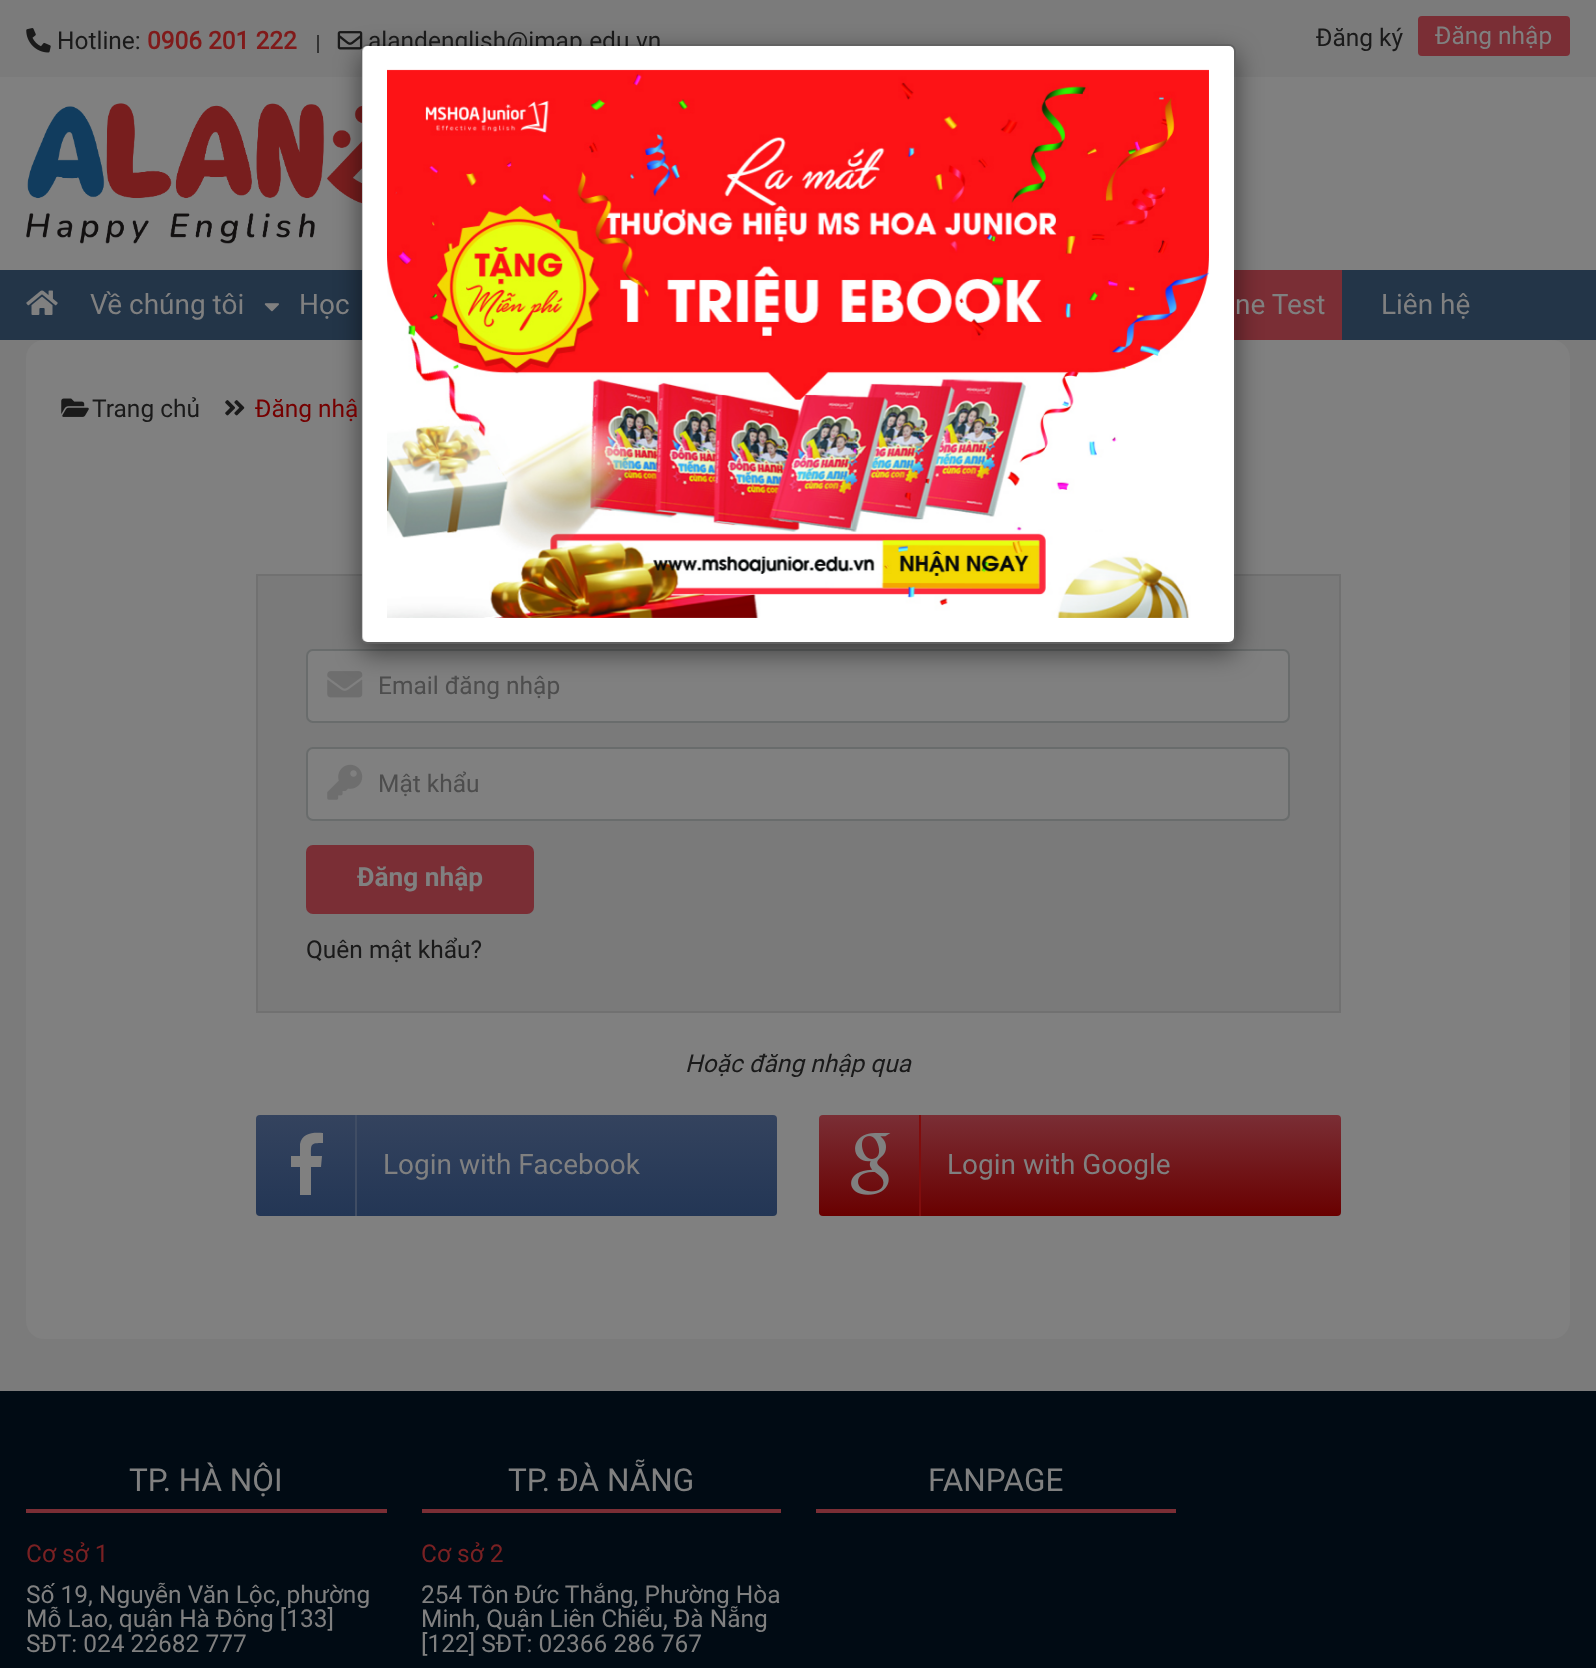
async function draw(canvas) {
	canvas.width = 1596;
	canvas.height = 1668;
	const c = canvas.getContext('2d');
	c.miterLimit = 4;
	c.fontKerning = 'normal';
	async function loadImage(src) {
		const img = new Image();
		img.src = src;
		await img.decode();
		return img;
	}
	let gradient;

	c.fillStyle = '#7b7b7b';
	c.fillRect(0, 0, 1596, 1668);
	c.drawImage(await loadImage('img3.png'), 337, 31, 26, 19);
	c.fillStyle = '#808080';
	c.fillRect(0, 77, 1596, 193);
	c.drawImage(await loadImage('img4.png'), 26, 103, 336, 141);
	c.fillStyle = '#233548';
	c.fillRect(0, 270, 1596, 70);
	c.fillStyle = '#7a2e35';
	c.fillRect(1234, 270, 108, 70);
	c.fillStyle = '#808080';
	c.beginPath();
	c.roundRect(26, 340, 1544, 999, 18);
	c.fill();
	c.fillStyle = '#7a7a7a';
	c.beginPath();
	c.rect(257, 575, 1083, 437);
	c.fill();
	c.strokeStyle = '#717171';
	c.lineWidth = 2;
	c.stroke();
	c.fillStyle = '#808080';
	c.beginPath();
	c.roundRect(307, 650, 982, 72, 6);
	c.fill();
	c.strokeStyle = '#696c6c';
	c.stroke();
	c.drawImage(await loadImage('img9.png'), 327, 671, 36, 27);
	c.save();
	c.beginPath();
	c.moveTo(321, 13);
	c.lineTo(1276, 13);
	c.lineTo(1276, 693);
	c.lineTo(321, 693);
	c.closePath();
	c.moveTo(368, 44);
	c.lineTo(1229, 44);
	c.bezierCurveTo(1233, 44, 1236, 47, 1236, 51);
	c.lineTo(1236, 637);
	c.bezierCurveTo(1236, 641, 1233, 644, 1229, 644);
	c.lineTo(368, 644);
	c.bezierCurveTo(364, 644, 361, 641, 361, 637);
	c.lineTo(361, 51);
	c.bezierCurveTo(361, 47, 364, 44, 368, 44);
	c.closePath();
	c.clip('evenodd');
	c.fillStyle = '#00000080';
	c.filter = 'blur(13px)';
	c.beginPath();
	c.roundRect(361, 53, 875, 600, 7);
	c.fill();
	c.filter = 'none';
	c.restore();
	c.font = '24.5px Roboto';
	c.fillStyle = '#1a1a1a';
	c.fillText('alandenglish@imap.edu.vn', 368, 49);
	c.fillStyle = '#fff';
	c.beginPath();
	c.roundRect(362, 46, 872, 596, 5);
	c.fill();
	c.beginPath();
	c.roundRect(362, 45, 873, 598, 6);
	c.strokeStyle = '#00000033';
	c.stroke();
	c.drawImage(await loadImage('img1.png'), 387, 69, 822, 549);
	c.drawImage(await loadImage('img2.png'), 26, 28, 25, 25);
	c.fillStyle = '#1a1a1a';
	c.fillText('Hotline:', 57, 49);
	c.font = 'bold 24.5px Roboto';
	c.fillStyle = '#801a1a';
	c.fillText('0906 201 222', 147, 49);
	c.fillStyle = '#333';
	c.fillRect(317, 35, 2, 18);
	c.font = '24.5px Roboto';
	c.fillStyle = '#1a1a1a';
	c.fillText('Đăng ký', 1316, 46);
	c.fillStyle = '#7a2e35';
	c.beginPath();
	c.roundRect(1418, 16, 152, 40, 4);
	c.fill();
	c.fillStyle = '#808080';
	c.fillText('Đăng nhập', 1435, 44);
	c.drawImage(await loadImage('img5.png'), 26, 290, 32, 25);
	c.font = '28px Roboto';
	c.fillText('Về chúng tôi', 90, 314);
	c.drawImage(await loadImage('img6.png'), 264, 303, 15, 9);
	for (const [text, x, y] of [
		['Học', 299, 314],
		['ne Test', 1235, 314],
		['Liên hệ', 1381, 314],
	]) {
		c.fillText(text, x, y);
	}
	c.drawImage(await loadImage('img7.png'), 61, 398, 28, 19);
	c.font = '24.5px Roboto';
	c.fillStyle = '#1a1a1a';
	c.fillText('Trang chủ', 92, 417);
	c.drawImage(await loadImage('img8.png'), 225, 400, 20, 16);
	c.fillStyle = '#750000';
	c.fillText('Đăng nhậ', 255, 417);
	c.font = '24.5px "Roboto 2"';
	c.fillStyle = '#4d4d4d';
	c.fillText('Email đăng nhập', 378, 694);
	c.fillStyle = '#808080';
	c.beginPath();
	c.roundRect(307, 748, 982, 72, 6);
	c.fill();
	c.strokeStyle = '#696c6c';
	c.stroke();
	c.drawImage(await loadImage('img10.png'), 327, 764, 36, 36);
	c.fillStyle = '#4d4d4d';
	c.fillText('Mật khẩu', 378, 792);
	c.fillStyle = '#7a2e35';
	c.beginPath();
	c.roundRect(306, 845, 228, 69, 7);
	c.fill();
	c.font = 'bold 26.25px "Roboto 2"';
	c.fillStyle = '#808080';
	c.fillText('Đăng nhập', 357, 886);
	c.font = '24.5px Roboto';
	c.fillStyle = '#1a1a1a';
	c.fillText('Quên mật khẩu?', 306, 958);
	c.font = 'italic 24.5px Roboto';
	c.fillText('Hoặc đăng nhập qua', 685, 1072);
	gradient = c.createLinearGradient(516, 1115, 516, 1216);
	gradient.addColorStop(0, '#34435e');
	gradient.addColorStop(1, '#233655');
	c.fillStyle = gradient;
	c.beginPath();
	c.roundRect(256, 1115, 521, 101, 4);
	c.fill();
	c.fillStyle = '#808080';
	c.beginPath();
	c.moveTo(323, 1133);
	c.lineTo(323, 1143);
	c.bezierCurveTo(310, 1143, 311, 1144, 311, 1156);
	c.lineTo(322, 1156);
	c.lineTo(321, 1167);
	c.lineTo(311, 1167);
	c.lineTo(311, 1195);
	c.lineTo(300, 1195);
	c.lineTo(300, 1167);
	c.lineTo(291, 1167);
	c.lineTo(291, 1156);
	c.lineTo(300, 1156);
	c.lineTo(300, 1144);
	c.bezierCurveTo(302, 1133, 313, 1132, 323, 1133);
	c.closePath();
	c.fill();
	c.fillStyle = '#404d64';
	c.fillRect(355, 1115, 2, 101);
	c.font = '28px Roboto';
	c.fillStyle = '#808080';
	c.fillText('Login with Facebook', 383, 1174);
	gradient = c.createLinearGradient(1080, 1115, 1080, 1216);
	gradient.addColorStop(0, '#7a2e35');
	gradient.addColorStop(1, '#690000');
	c.fillStyle = gradient;
	c.beginPath();
	c.roundRect(819, 1115, 522, 101, 4);
	c.fill();
	c.drawImage(await loadImage('img11.png'), 851, 1133, 40, 62);
	c.fillStyle = '#800d0d';
	c.fillRect(919, 1115, 2, 101);
	c.fillStyle = '#808080';
	c.fillText('Login with Google', 947, 1174);
	c.fillStyle = '#010b14';
	c.fillRect(0, 1391, 1596, 277);
	c.fillStyle = '#7a2e35';
	c.fillRect(26, 1509, 361, 4);
	c.font = '31.5px Roboto';
	c.fillStyle = '#808080';
	c.fillText('TP. HÀ NỘI', 129, 1491);
	c.font = '24.5px Roboto';
	c.fillStyle = '#792123';
	c.fillText('Cơ sở 1', 26, 1562);
	c.fillStyle = '#808080';
	for (const [text, x, y] of [
		['Số 19, Nguyễn Văn Lộc, phường', 26, 1603],
		['Mỗ Lao, quận Hà Đông [133]', 26, 1627],
		['SĐT: 024 22682 777', 26, 1652],
	]) {
		c.fillText(text, x, y);
	}
	c.fillStyle = '#7a2e35';
	c.fillRect(422, 1509, 359, 4);
	c.font = '31.5px Roboto';
	c.fillStyle = '#808080';
	c.fillText('TP. ĐÀ NẴNG', 508, 1491);
	c.font = '24.5px Roboto';
	c.fillStyle = '#792123';
	c.fillText('Cơ sở 2', 421, 1562);
	c.fillStyle = '#808080';
	for (const [text, x, y] of [
		['254 Tôn Đức Thắng, Phường Hòa', 421, 1603],
		['Minh, Quận Liên Chiểu, Đà Nẵng', 421, 1627],
		['[122] SĐT: 02366 286 767', 421, 1652],
	]) {
		c.fillText(text, x, y);
	}
	c.fillStyle = '#7a2e35';
	c.fillRect(816, 1509, 360, 4);
	c.font = '31.5px Roboto';
	c.fillStyle = '#808080';
	c.fillText('FANPAGE', 928, 1491);
}

draw(document.querySelector('canvas'));
